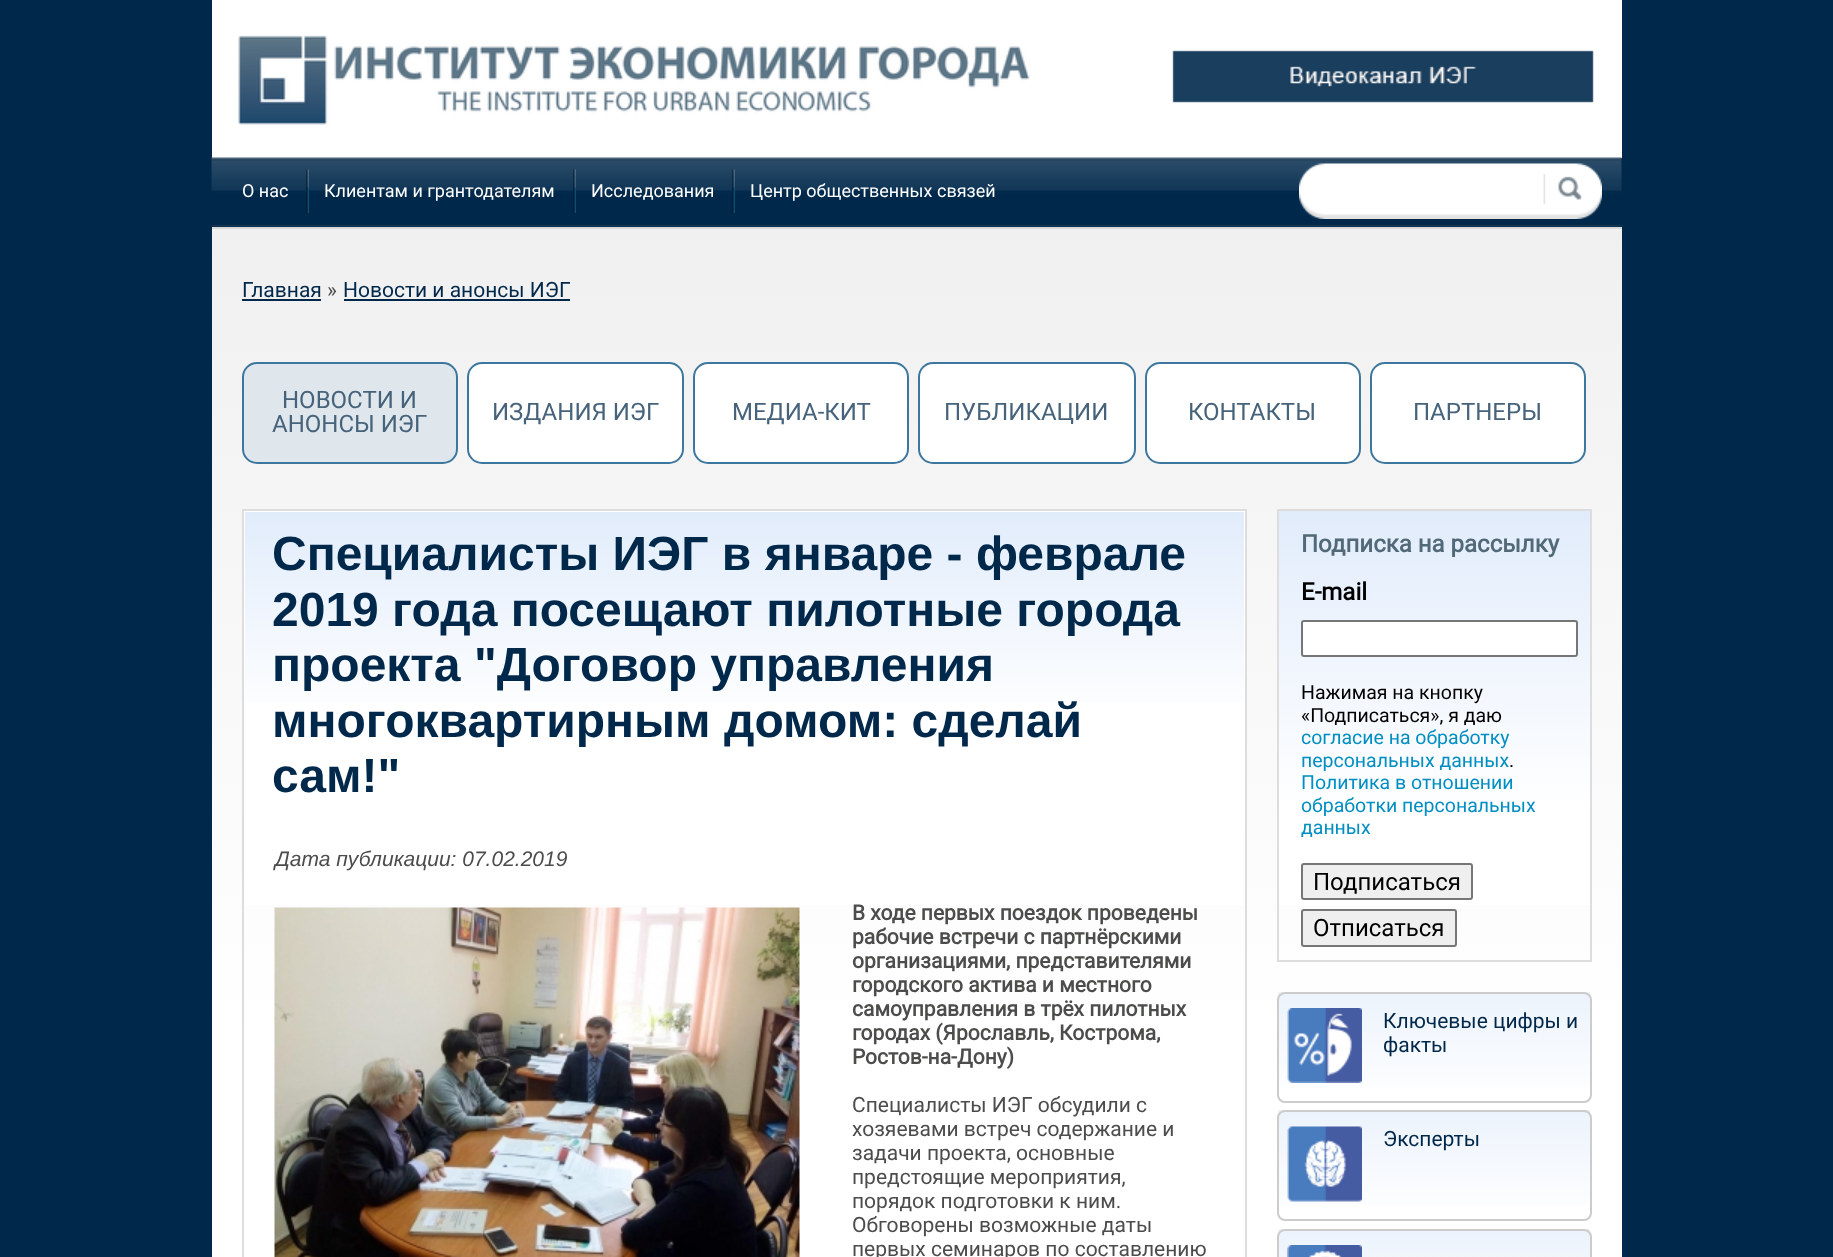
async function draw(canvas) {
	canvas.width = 1833;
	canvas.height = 1257;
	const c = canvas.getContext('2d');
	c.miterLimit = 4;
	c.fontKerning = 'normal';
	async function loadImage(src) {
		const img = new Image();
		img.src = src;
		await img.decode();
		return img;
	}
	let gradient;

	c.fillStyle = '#00284b';
	c.fillRect(0, 0, 1833, 1257);
	c.fillStyle = '#fff';
	c.fillRect(212, 0, 1410, 158);
	c.drawImage(await loadImage('img1.png'), 238, 35, 792, 90);
	c.drawImage(await loadImage('img2.png'), 1172, 50, 422, 53);
	c.drawImage(await loadImage('img3.png'), 211, 157, 1411, 70);
	c.font = '18px Roboto';
	c.fillText('О нас', 242, 197);
	c.drawImage(await loadImage('img4.png'), 306, 169, 3, 44);
	c.fillText('Клиентам и грантодателям', 324, 197);
	c.drawImage(await loadImage('img4.png'), 573, 169, 3, 44);
	c.fillText('Исследования', 591, 197);
	c.drawImage(await loadImage('img4.png'), 732, 169, 3, 44);
	c.fillText('Центр общественных связей', 750, 197);
	c.drawImage(await loadImage('img5.png'), 1299, 163, 303, 56);
	gradient = c.createLinearGradient(916, 228, 917, 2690);
	gradient.addColorStop(0, '#f0f0f0');
	gradient.addColorStop(0.33, '#fff');
	c.fillStyle = gradient;
	c.fillRect(212, 229, 1410, 1028);
	c.fillStyle = '#d9d9d7';
	c.fillRect(212, 227, 1410, 2);
	c.font = '21px Roboto';
	c.fillStyle = '#00284b';
	c.fillText('Главная', 242, 297);
	c.fillRect(242, 299, 79, 2);
	c.fillStyle = '#4b4d4a';
	c.fillText('»', 327, 297);
	c.fillStyle = '#00284b';
	c.fillText('Новости и анонсы ИЭГ', 343, 297);
	c.fillRect(344, 299, 226, 2);
	c.fillStyle = '#dfe7ed';
	c.beginPath();
	c.roundRect(243, 363, 214, 100, 14);
	c.fill();
	c.strokeStyle = '#3e779d';
	c.lineWidth = 2;
	c.stroke();
	c.font = '24px Roboto';
	c.fillStyle = '#47637b';
	c.fillText('НОВОСТИ И', 282, 408);
	c.fillText('АНОНСЫ ИЭГ', 272, 432);
	c.fillStyle = '#fff';
	c.beginPath();
	c.roundRect(468, 363, 215, 100, 14);
	c.fill();
	c.stroke();
	c.fillStyle = '#47637b';
	c.fillText('ИЗДАНИЯ ИЭГ', 492, 420);
	c.fillStyle = '#fff';
	c.beginPath();
	c.roundRect(694, 363, 214, 100, 14);
	c.fill();
	c.stroke();
	c.fillStyle = '#47637b';
	c.fillText('МЕДИА-КИТ', 732, 420);
	c.fillStyle = '#fff';
	c.beginPath();
	c.roundRect(919, 363, 216, 100, 14);
	c.fill();
	c.stroke();
	c.fillStyle = '#47637b';
	c.fillText('ПУБЛИКАЦИИ', 944, 420);
	c.fillStyle = '#fff';
	c.beginPath();
	c.roundRect(1146, 363, 214, 100, 14);
	c.fill();
	c.stroke();
	c.fillStyle = '#47637b';
	c.fillText('КОНТАКТЫ', 1188, 420);
	c.fillStyle = '#fff';
	c.beginPath();
	c.roundRect(1371, 363, 214, 100, 14);
	c.fill();
	c.stroke();
	c.fillStyle = '#47637b';
	c.fillText('ПАРТНЕРЫ', 1413, 420);
	c.fillStyle = '#fff';
	c.fillRect(244, 511, 1001, 394);
	c.strokeStyle = '#ddd';
	c.strokeRect(243, 510, 1003, 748);
	gradient = c.createLinearGradient(744, 511, 744, 819);
	gradient.addColorStop(0, '#e1ecfb');
	gradient.addColorStop(0.68, '#fff');
	c.fillStyle = gradient;
	c.fillRect(245, 512, 999, 191);
	c.font = 'bold 48px Liberation Sans';
	c.fillStyle = '#00284b';
	for (const [text, x, y] of [
		['Специалисты ИЭГ в январе - феврале', 272, 570],
		['2019 года посещают пилотные города', 272, 626],
		['проекта "Договор управления', 272, 681],
		['многоквартирным домом: сделай', 272, 737],
		['сам!"', 272, 792],
	]) {
		c.fillText(text, x, y);
	}
	c.font = 'italic 21px Liberation Sans';
	c.fillStyle = '#4b4d4a';
	c.fillText('Дата публикации: 07.02.2019', 275, 866);
	c.drawImage(await loadImage('img6.png'), 274, 907, 526, 350);
	c.font = 'bold 21px Roboto';
	for (const [text, x, y] of [
		['В ходе первых поездок проведены', 852, 920],
		['рабочие встречи с партнёрскими', 852, 944],
		['организациями, представителями', 852, 968],
		['городского актива и местного', 852, 992],
		['самоуправления в трёх пилотных', 852, 1016],
		['городах (Ярославль, Кострома,', 852, 1040],
		['Ростов-на-Дону)', 852, 1064],
	]) {
		c.fillText(text, x, y);
	}
	c.font = '21px Roboto';
	for (const [text, x, y] of [
		['Специалисты ИЭГ обсудили с', 852, 1112],
		['хозяевами встреч содержание и', 852, 1136],
		['задачи проекта, основные', 852, 1160],
		['предстоящие мероприятия,', 852, 1184],
		['порядок подготовки к ним.', 852, 1208],
		['Обговорены возможные даты', 852, 1232],
		['первых семинаров по составлению', 852, 1256],
	]) {
		c.fillText(text, x, y);
	}
	gradient = c.createLinearGradient(1434, 510, 1434, 960);
	gradient.addColorStop(0, '#e1ecfb');
	gradient.addColorStop(0.68, '#fff');
	c.fillStyle = gradient;
	c.fillRect(1279, 511, 311, 394);
	c.strokeRect(1278, 510, 313, 451);
	c.font = 'bold 24px Roboto';
	c.fillStyle = '#526977';
	c.fillText('Подписка на рассылку', 1301, 552);
	c.fillStyle = '#000';
	c.fillText('E-mail', 1301, 600);
	c.fillStyle = '#fff';
	c.beginPath();
	c.roundRect(1302, 621, 275, 35, 2);
	c.fill();
	c.strokeStyle = '#767676';
	c.stroke();
	c.font = '19.5px Roboto';
	c.fillStyle = '#000';
	c.fillText('Нажимая на кнопку', 1301, 699);
	c.fillText('«Подписаться», я даю', 1301, 722);
	c.fillStyle = '#018ec2';
	c.fillText('согласие на обработку', 1301, 744);
	c.fillText('персональных данных', 1301, 767);
	c.fillStyle = '#000';
	c.fillText('.', 1509, 767);
	c.fillStyle = '#018ec2';
	for (const [text, x, y] of [
		['Политика в отношении', 1301, 789],
		['обработки персональных', 1301, 812],
		['данных', 1301, 834],
	]) {
		c.fillText(text, x, y);
	}
	c.fillStyle = '#efefef';
	c.beginPath();
	c.roundRect(1302, 864, 170, 35, 2);
	c.fill();
	c.stroke();
	c.font = '24px Roboto';
	c.fillStyle = '#000';
	c.fillText('Подписаться', 1313, 890);
	c.fillStyle = '#efefef';
	c.beginPath();
	c.roundRect(1302, 910, 154, 36, 2);
	c.fill();
	c.stroke();
	c.fillStyle = '#000';
	c.fillText('Отписаться', 1313, 936);
	gradient = c.createLinearGradient(1434, 992, 1434, 1103);
	gradient.addColorStop(0, '#ecf3fc');
	gradient.addColorStop(1, '#fff');
	c.fillStyle = gradient;
	c.fillRect(1278, 992, 312, 96);
	c.beginPath();
	c.roundRect(1278, 993, 313, 109, 7);
	c.strokeStyle = '#ccc';
	c.stroke();
	c.drawImage(await loadImage('img7.png'), 1287, 1008, 75, 75);
	c.font = '21px Roboto';
	c.fillStyle = '#00284b';
	c.fillText('Ключевые цифры и', 1383, 1028);
	c.fillText('факты', 1383, 1052);
	gradient = c.createLinearGradient(1434, 1110, 1434, 1221);
	gradient.addColorStop(0, '#ecf3fc');
	gradient.addColorStop(1, '#fff');
	c.fillStyle = gradient;
	c.fillRect(1278, 1110, 312, 96);
	c.beginPath();
	c.roundRect(1278, 1111, 313, 109, 7);
	c.stroke();
	c.drawImage(await loadImage('img8.png'), 1287, 1126, 75, 76);
	c.fillStyle = '#00284b';
	c.fillText('Эксперты', 1383, 1146);
	gradient = c.createLinearGradient(1434, 1229, 1434, 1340);
	gradient.addColorStop(0, '#ecf3fc');
	gradient.addColorStop(1, '#fff');
	c.fillStyle = gradient;
	c.fillRect(1278, 1229, 312, 28);
	c.beginPath();
	c.roundRect(1278, 1230, 313, 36, 7);
	c.stroke();
	c.drawImage(await loadImage('img9.png'), 1287, 1245, 75, 12);
}

draw(document.querySelector('canvas'));
